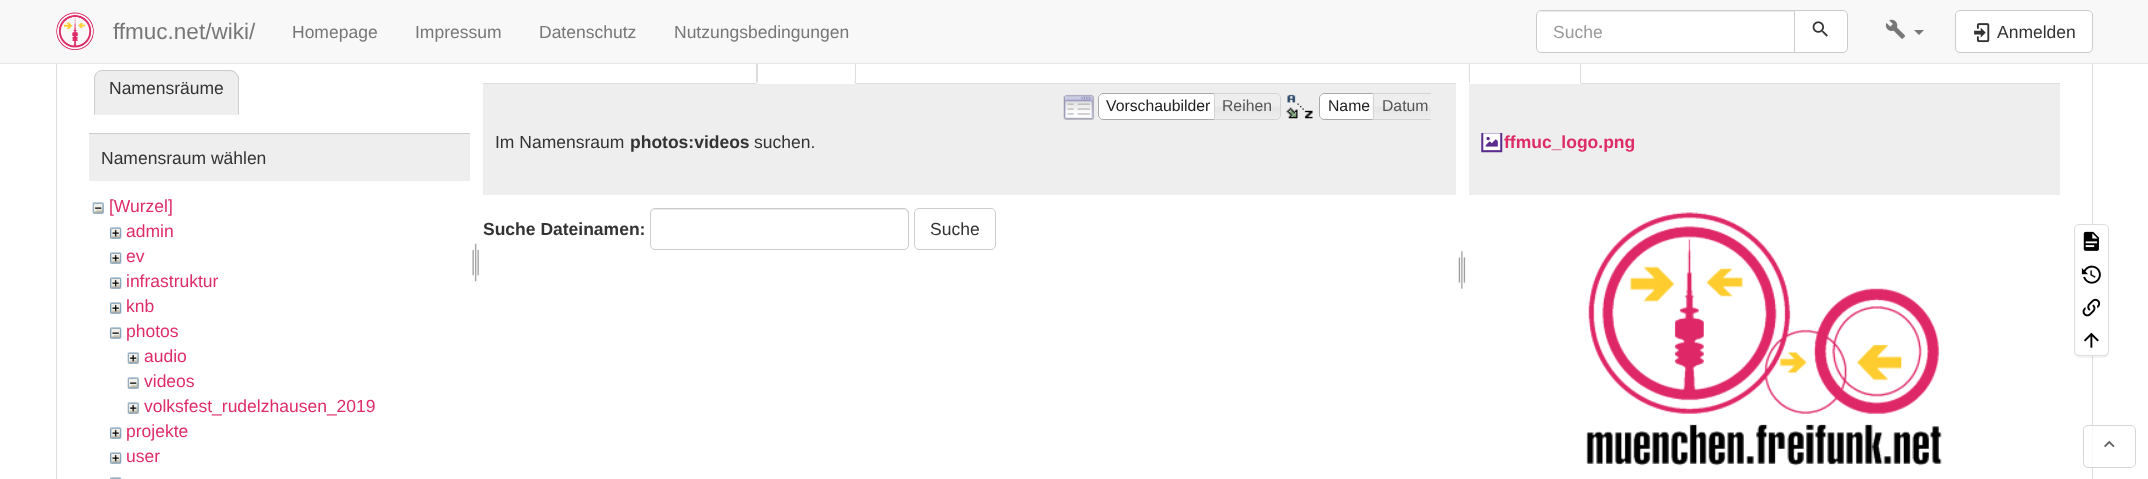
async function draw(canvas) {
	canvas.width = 2148;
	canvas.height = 479;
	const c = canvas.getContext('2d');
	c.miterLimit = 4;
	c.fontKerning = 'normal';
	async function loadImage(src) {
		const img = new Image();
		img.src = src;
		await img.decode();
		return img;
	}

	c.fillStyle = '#fff';
	c.fillRect(0, 0, 2148, 479);
	c.strokeStyle = '#ddd';
	c.strokeRect(56.5, -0.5, 2036, 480);
	c.fillStyle = '#ddd';
	c.fillRect(483, 83, 973, 1);
	c.fillStyle = '#fff';
	c.fillRect(756, 83, 100, 1);
	c.fillStyle = '#ddd';
	c.beginPath();
	c.moveTo(855, 33);
	c.bezierCurveTo(856, 33, 856, 35, 856, 36);
	c.lineTo(856, 84);
	c.lineTo(854, 82);
	c.lineTo(855, 82);
	c.lineTo(855, 36);
	c.lineTo(854, 34);
	c.closePath();
	c.fill();
	c.beginPath();
	c.moveTo(756, 84);
	c.lineTo(756, 34);
	c.lineTo(757, 32);
	c.lineTo(759, 34);
	c.lineTo(758, 36);
	c.lineTo(758, 82);
	c.closePath();
	c.fill();
	c.beginPath();
	c.moveTo(1580, 33);
	c.bezierCurveTo(1581, 33, 1581, 35, 1581, 36);
	c.lineTo(1581, 84);
	c.lineTo(1580, 82);
	c.lineTo(1580, 36);
	c.lineTo(1579, 34);
	c.closePath();
	c.fill();
	c.beginPath();
	c.moveTo(1469, 84);
	c.lineTo(1469, 36);
	c.bezierCurveTo(1469, 35, 1469, 33, 1470, 33);
	c.lineTo(1471, 34);
	c.lineTo(1470, 36);
	c.lineTo(1470, 82);
	c.closePath();
	c.fill();
	c.fillStyle = '#f8f8f8';
	c.fillRect(0, 0, 2148, 63);
	c.fillStyle = '#e7e7e7';
	c.fillRect(0, 63, 2148, 1);
	c.drawImage(await loadImage('img1.png'), 56, 12, 38, 38);
	c.font = '22.5px Liberation Sans';
	c.fillStyle = '#777';
	c.fillText('ffmuc.net/wiki/', 113, 39);
	c.font = '17.5px Liberation Sans';
	for (const [text, x, y] of [
		['Homepage', 292, 38],
		['Impressum', 415, 38],
		['Datenschutz', 539, 38],
		['Nutzungsbedingungen', 674, 38],
	]) {
		c.fillText(text, x, y);
	}
	c.fillStyle = '#fff';
	c.beginPath();
	c.roundRect(1536, 10, 259, 43, [5, 0, 0, 5]);
	c.fill();
	c.fillStyle = '#ececec';
	c.beginPath();
	c.moveTo(1541, 12);
	c.lineTo(1794, 12);
	c.lineTo(1794, 11);
	c.lineTo(1542, 11);
	c.bezierCurveTo(1540, 11, 1538, 13, 1538, 15);
	c.lineTo(1538, 16);
	c.bezierCurveTo(1538, 14, 1539, 12, 1541, 12);
	c.closePath();
	c.fill();
	c.beginPath();
	c.roundRect(1536.5, 10.5, 258, 42, [4.5, 0, 0, 4.5]);
	c.strokeStyle = '#ccc';
	c.stroke();
	c.fillStyle = '#999';
	c.fillText('Suche', 1553, 38);
	c.fillStyle = '#fff';
	c.beginPath();
	c.roundRect(1794.5, 10.5, 53, 42, [0, 4.5, 4.5, 0]);
	c.fill();
	c.stroke();
	c.drawImage(await loadImage('img2.png'), 1812, 21, 16, 16);
	c.drawImage(await loadImage('img3.png'), 1885, 19, 21, 20);
	c.fillStyle = '#777';
	c.beginPath();
	c.moveTo(1914, 30);
	c.lineTo(1924, 30);
	c.lineTo(1919, 35);
	c.closePath();
	c.fill();
	c.fillStyle = '#fff';
	c.beginPath();
	c.roundRect(1955.5, 10.5, 137, 42, 4.5);
	c.fill();
	c.stroke();
	c.drawImage(await loadImage('img4.png'), 1974, 23, 16, 20);
	c.fillStyle = '#333';
	c.fillText('Anmelden', 1997, 38);
	c.fillStyle = '#eee';
	c.beginPath();
	c.roundRect(94, 70, 145, 45, [9, 9, 0, 0]);
	c.fill();
	c.fillStyle = '#ccc';
	c.beginPath();
	c.moveTo(102, 70);
	c.bezierCurveTo(100, 70, 98, 71, 96, 73);
	c.lineTo(97, 73);
	c.bezierCurveTo(98, 72, 100, 71, 102, 71);
	c.lineTo(230, 71);
	c.bezierCurveTo(232, 71, 234, 72, 235, 73);
	c.lineTo(236, 73);
	c.bezierCurveTo(235, 71, 232, 70, 230, 70);
	c.closePath();
	c.fill();
	c.beginPath();
	c.moveTo(239, 77);
	c.lineTo(239, 115);
	c.lineTo(238, 114);
	c.lineTo(238, 79);
	c.bezierCurveTo(238, 77, 237, 75, 235, 73);
	c.lineTo(236, 73);
	c.bezierCurveTo(237, 74, 238, 75, 239, 77);
	c.closePath();
	c.fill();
	c.fillStyle = '#eee';
	c.beginPath();
	c.moveTo(239, 115);
	c.lineTo(238, 114);
	c.lineTo(95, 114);
	c.lineTo(94, 115);
	c.closePath();
	c.fill();
	c.fillStyle = '#ccc';
	c.beginPath();
	c.moveTo(96, 73);
	c.bezierCurveTo(95, 74, 94, 77, 94, 79);
	c.lineTo(94, 115);
	c.lineTo(95, 114);
	c.lineTo(95, 79);
	c.bezierCurveTo(95, 77, 96, 75, 97, 73);
	c.closePath();
	c.fill();
	c.fillStyle = '#333';
	c.fillText('Namensräume', 109, 94);
	c.fillStyle = '#eee';
	c.fillRect(89, 134, 381, 47);
	c.fillStyle = '#ccc';
	c.fillRect(89, 133, 381, 1);
	c.fillStyle = '#333';
	c.fillText('Namensraum wählen', 101, 164);
	c.drawImage(await loadImage('img5.png'), 92, 202, 12, 12);
	c.fillStyle = '#de2c68';
	c.fillText('[Wurzel]', 109, 212);
	c.drawImage(await loadImage('img6.png'), 110, 227, 12, 12);
	c.fillText('admin', 126, 237);
	c.drawImage(await loadImage('img6.png'), 110, 252, 12, 12);
	c.fillText('ev', 126, 262);
	c.drawImage(await loadImage('img6.png'), 110, 277, 12, 12);
	c.fillText('infrastruktur', 126, 287);
	c.drawImage(await loadImage('img6.png'), 110, 302, 12, 12);
	c.fillText('knb', 126, 312);
	c.drawImage(await loadImage('img7.png'), 110, 327, 12, 12);
	c.fillText('photos', 126, 337);
	c.drawImage(await loadImage('img8.png'), 127, 352, 12, 12);
	c.fillText('audio', 144, 362);
	c.drawImage(await loadImage('img5.png'), 127, 377, 12, 12);
	c.fillText('videos', 144, 387);
	c.drawImage(await loadImage('img8.png'), 127, 402, 12, 12);
	c.fillText('volksfest_rudelzhausen_2019', 144, 412);
	c.drawImage(await loadImage('img6.png'), 110, 427, 12, 12);
	c.fillText('projekte', 126, 437);
	c.drawImage(await loadImage('img6.png'), 110, 452, 12, 12);
	c.fillText('user', 126, 462);
	c.drawImage(await loadImage('img9.png'), 110, 477, 12, 2);
	c.drawImage(await loadImage('img10.png'), 472, 242, 7, 40);
	c.fillStyle = '#eee';
	c.fillRect(483, 84, 973, 111);
	c.drawImage(await loadImage('img11.png'), 1063, 94, 31, 26);
	c.fillStyle = '#fff';
	c.beginPath();
	c.roundRect(1098, 93, 122, 27, [5, 0, 0, 5]);
	c.fill();
	c.drawImage(await loadImage('img12.png'), 1097, 93, 5, 27);
	c.beginPath();
	c.roundRect(1098.5, 93.5, 121, 26, [4.5, 0, 0, 4.5]);
	c.strokeStyle = '#aaa';
	c.stroke();
	c.font = '15.75px Liberation Sans';
	c.fillStyle = '#212121';
	c.fillText('Vorschaubilder', 1106, 111);
	c.drawImage(await loadImage('img13.png'), 1213, 93, 68, 27);
	c.beginPath();
	c.roundRect(1214.5, 93.5, 66, 26, [0, 4.5, 4.5, 0]);
	c.strokeStyle = '#d3d3d3';
	c.stroke();
	c.fillStyle = '#555';
	c.fillText('Reihen', 1222, 111);
	c.drawImage(await loadImage('img14.png'), 1286, 94, 27, 25);
	c.fillStyle = '#fff';
	c.beginPath();
	c.roundRect(1319, 93, 60, 27, [5, 0, 0, 5]);
	c.fill();
	c.drawImage(await loadImage('img15.png'), 1319, 93, 4, 26);
	c.beginPath();
	c.roundRect(1319.5, 93.5, 59, 26, [4.5, 0, 0, 4.5]);
	c.strokeStyle = '#aaa';
	c.stroke();
	c.fillStyle = '#212121';
	c.fillText('Name', 1328, 111);
	c.drawImage(await loadImage('img16.png'), 1372, 93, 59, 27);
	c.save();
	c.beginPath();
	c.rect(1054, 93, 377, 27);
	c.clip();
	c.beginPath();
	c.roundRect(1373.5, 93.5, 64, 26, [0, 4.5, 4.5, 0]);
	c.strokeStyle = '#d3d3d3';
	c.stroke();
	c.restore();
	c.fillStyle = '#555';
	c.fillText('Datum', 1382, 111);
	c.font = '17.5px Liberation Sans';
	c.fillStyle = '#333';
	c.fillText('Im Namensraum', 495, 148);
	c.font = 'bold 17.5px Liberation Sans';
	c.fillText('photos:videos', 630, 148);
	c.font = '17.5px Liberation Sans';
	c.fillText('suchen.', 754, 148);
	c.font = 'bold 17.5px Liberation Sans';
	c.fillText('Suche Dateinamen:', 483, 235);
	c.fillStyle = '#ececec';
	c.beginPath();
	c.moveTo(655, 210);
	c.lineTo(905, 210);
	c.lineTo(907, 212);
	c.lineTo(908, 214);
	c.lineTo(908, 213);
	c.bezierCurveTo(908, 211, 906, 209, 904, 209);
	c.lineTo(655, 209);
	c.bezierCurveTo(653, 209, 651, 211, 651, 213);
	c.lineTo(651, 214);
	c.bezierCurveTo(651, 212, 653, 210, 655, 210);
	c.closePath();
	c.fill();
	c.beginPath();
	c.roundRect(650.5, 208.5, 258, 41, 4.5);
	c.strokeStyle = '#ccc';
	c.stroke();
	c.beginPath();
	c.roundRect(914.5, 208.5, 81, 41, 4.5);
	c.stroke();
	c.font = '17.5px Liberation Sans';
	c.fillStyle = '#333';
	c.fillText('Suche', 930, 235);
	c.drawImage(await loadImage('img17.png'), 1458, 250, 8, 39);
	c.fillStyle = '#ddd';
	c.fillRect(1581, 83, 479, 1);
	c.fillStyle = '#eee';
	c.fillRect(1469, 84, 591, 111);
	c.drawImage(await loadImage('img18.png'), 1481, 133, 22, 20);
	c.font = 'bold 17.5px Liberation Sans';
	c.fillStyle = '#de2c68';
	c.fillText('ffmuc_logo.png', 1504, 148);
	c.drawImage(await loadImage('img19.png'), 1586, 212, 356, 254);
	c.fillStyle = '#0000000d';
	c.filter = 'blur(0.5px)';
	c.beginPath();
	c.roundRect(2074, 225, 35, 133, 5);
	c.fill();
	c.filter = 'none';
	c.fillStyle = '#fff';
	c.beginPath();
	c.roundRect(2074.5, 224.5, 34, 131, 4.5);
	c.fill();
	c.strokeStyle = '#ddd';
	c.stroke();
	c.drawImage(await loadImage('img20.png'), 2083, 231, 16, 20);
	c.drawImage(await loadImage('img21.png'), 2081, 265, 20, 19);
	c.drawImage(await loadImage('img22.png'), 2082, 298, 19, 19);
	c.drawImage(await loadImage('img23.png'), 2084, 332, 15, 16);
	c.fillStyle = '#ffffffcc';
	c.beginPath();
	c.roundRect(2083, 425, 53, 43, 5);
	c.fill();
	c.beginPath();
	c.roundRect(2083.5, 425.5, 52, 42, 4.5);
	c.strokeStyle = '#cccccccc';
	c.stroke();
	c.drawImage(await loadImage('img24.png'), 2104, 440, 11, 8);
}

draw(document.querySelector('canvas'));
